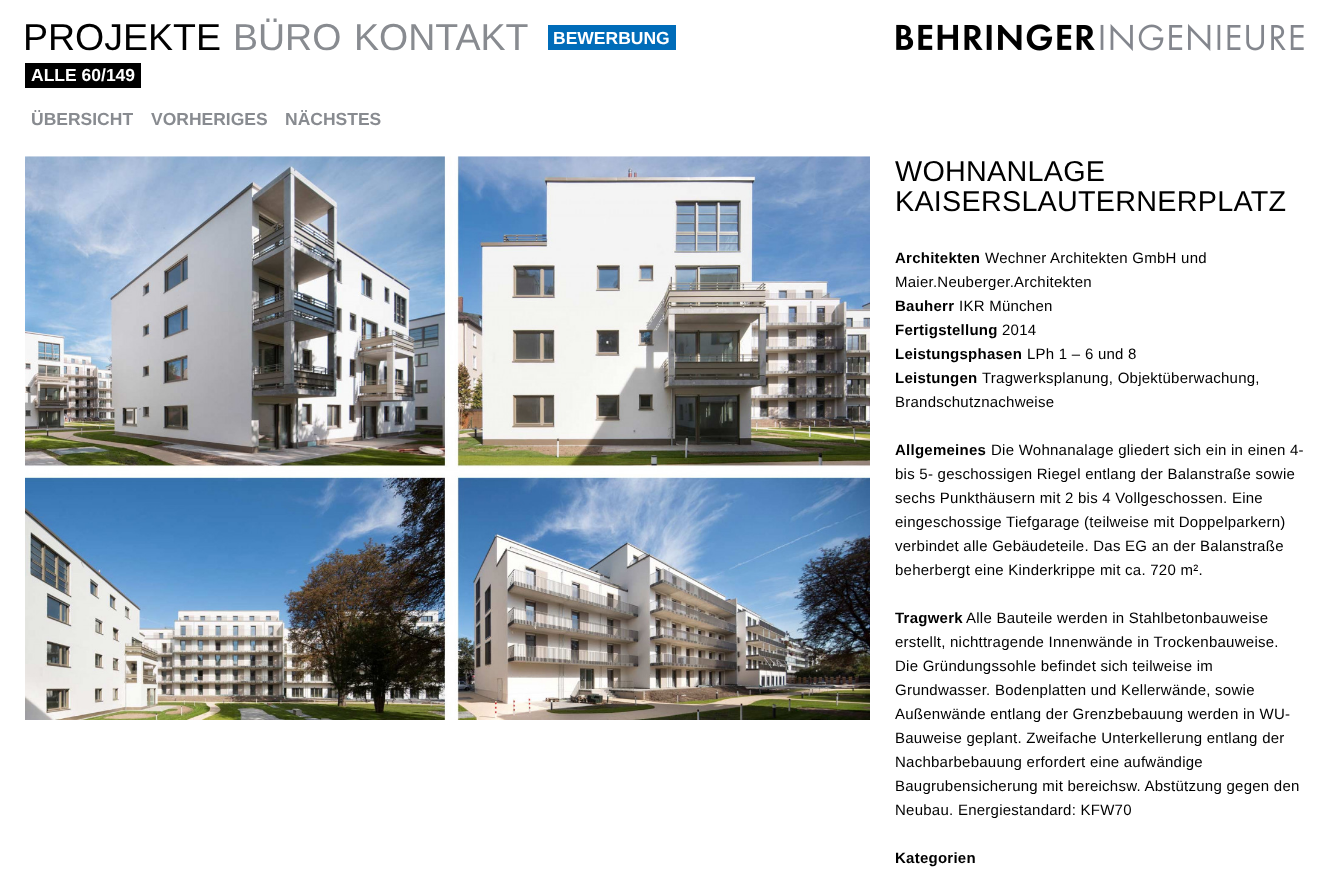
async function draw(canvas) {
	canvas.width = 1328;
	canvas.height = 877;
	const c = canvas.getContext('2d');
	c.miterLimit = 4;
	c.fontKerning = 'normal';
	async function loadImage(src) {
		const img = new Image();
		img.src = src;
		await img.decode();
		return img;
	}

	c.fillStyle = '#fff';
	c.fillRect(0, 0, 1328, 877);
	c.font = '37.5px Liberation Sans';
	c.fillStyle = '#000';
	c.fillText('PROJEKTE', 23, 50);
	c.fillStyle = '#888b90';
	c.fillText('BÜRO', 233, 50);
	c.fillText('KONTAKT', 354, 50);
	c.fillStyle = '#006cb9';
	c.fillRect(548, 25, 128, 25);
	c.font = 'bold 17.5px Liberation Sans';
	c.fillStyle = '#fff';
	c.fillText('BEWERBUNG', 553, 44);
	c.drawImage(await loadImage('img1.png'), 896, 24, 408, 27);
	c.fillStyle = '#000';
	c.fillRect(25, 63, 116, 25);
	c.fillStyle = '#fff';
	c.fillText('ALLE 60/149', 31, 81);
	c.fillStyle = '#888b90';
	for (const [text, x, y] of [
		['ÜBERSICHT', 31, 125],
		['VORHERIGES', 151, 125],
		['NÄCHSTES', 285, 125],
	]) {
		c.fillText(text, x, y);
	}
	c.drawImage(await loadImage('img2.png'), 25, 156, 845, 564);
	c.letterSpacing = '0.25px';
	c.font = '28.75px Liberation Sans';
	c.fillStyle = '#000';
	c.fillText('WOHNANLAGE', 895, 181);
	c.fillText('KAISERSLAUTERNERPLATZ', 895, 211);
	c.font = 'bold 15px Liberation Sans';
	c.fillText('Architekten', 895, 263);
	c.font = '15px Liberation Sans';
	c.fillText('Wechner Architekten GmbH und', 985, 263);
	c.fillText('Maier.Neuberger.Architekten', 895, 287);
	c.font = 'bold 15px Liberation Sans';
	c.fillText('Bauherr', 895, 311);
	c.font = '15px Liberation Sans';
	c.fillText('IKR München', 959, 311);
	c.font = 'bold 15px Liberation Sans';
	c.fillText('Fertigstellung', 895, 335);
	c.font = '15px Liberation Sans';
	c.fillText('2014', 1002, 335);
	c.font = 'bold 15px Liberation Sans';
	c.fillText('Leistungsphasen', 895, 359);
	c.font = '15px Liberation Sans';
	c.fillText('LPh 1 – 6 und 8', 1027, 359);
	c.font = 'bold 15px Liberation Sans';
	c.fillText('Leistungen', 895, 383);
	c.font = '15px Liberation Sans';
	c.fillText('Tragwerksplanung, Objektüberwachung,', 982, 383);
	c.fillText('Brandschutznachweise', 895, 407);
	c.font = 'bold 15px Liberation Sans';
	c.fillText('Allgemeines', 895, 455);
	c.font = '15px Liberation Sans';
	for (const [text, x, y] of [
		['Die Wohnanalage gliedert sich ein in einen 4-', 991, 455],
		['bis 5- geschossigen Riegel entlang der Balanstraße sowie', 895, 479],
		['sechs Punkthäusern mit 2 bis 4 Vollgeschossen. Eine', 895, 503],
		['eingeschossige Tiefgarage (teilweise mit Doppelparkern)', 895, 527],
		['verbindet alle Gebäudeteile. Das EG an der Balanstraße', 895, 551],
		['beherbergt eine Kinderkrippe mit ca. 720 m².', 895, 575],
	]) {
		c.fillText(text, x, y);
	}
	c.font = 'bold 15px Liberation Sans';
	c.fillText('Tragwerk', 895, 623);
	c.font = '15px Liberation Sans';
	for (const [text, x, y] of [
		['Alle Bauteile werden in Stahlbetonbauweise', 966, 623],
		['erstellt, nichttragende Innenwände in Trockenbauweise.', 895, 647],
		['Die Gründungssohle befindet sich teilweise im', 895, 671],
		['Grundwasser. Bodenplatten und Kellerwände, sowie', 895, 695],
		['Außenwände entlang der Grenzbebauung werden in WU-', 895, 719],
		['Bauweise geplant. Zweifache Unterkellerung entlang der', 895, 743],
		['Nachbarbebauung erfordert eine aufwändige', 895, 767],
		['Baugrubensicherung mit bereichsw. Abstützung gegen den', 895, 791],
		['Neubau. Energiestandard: KFW70', 895, 815],
	]) {
		c.fillText(text, x, y);
	}
	c.font = 'bold 15px Liberation Sans';
	c.fillText('Kategorien', 895, 863);
}

draw(document.querySelector('canvas'));
